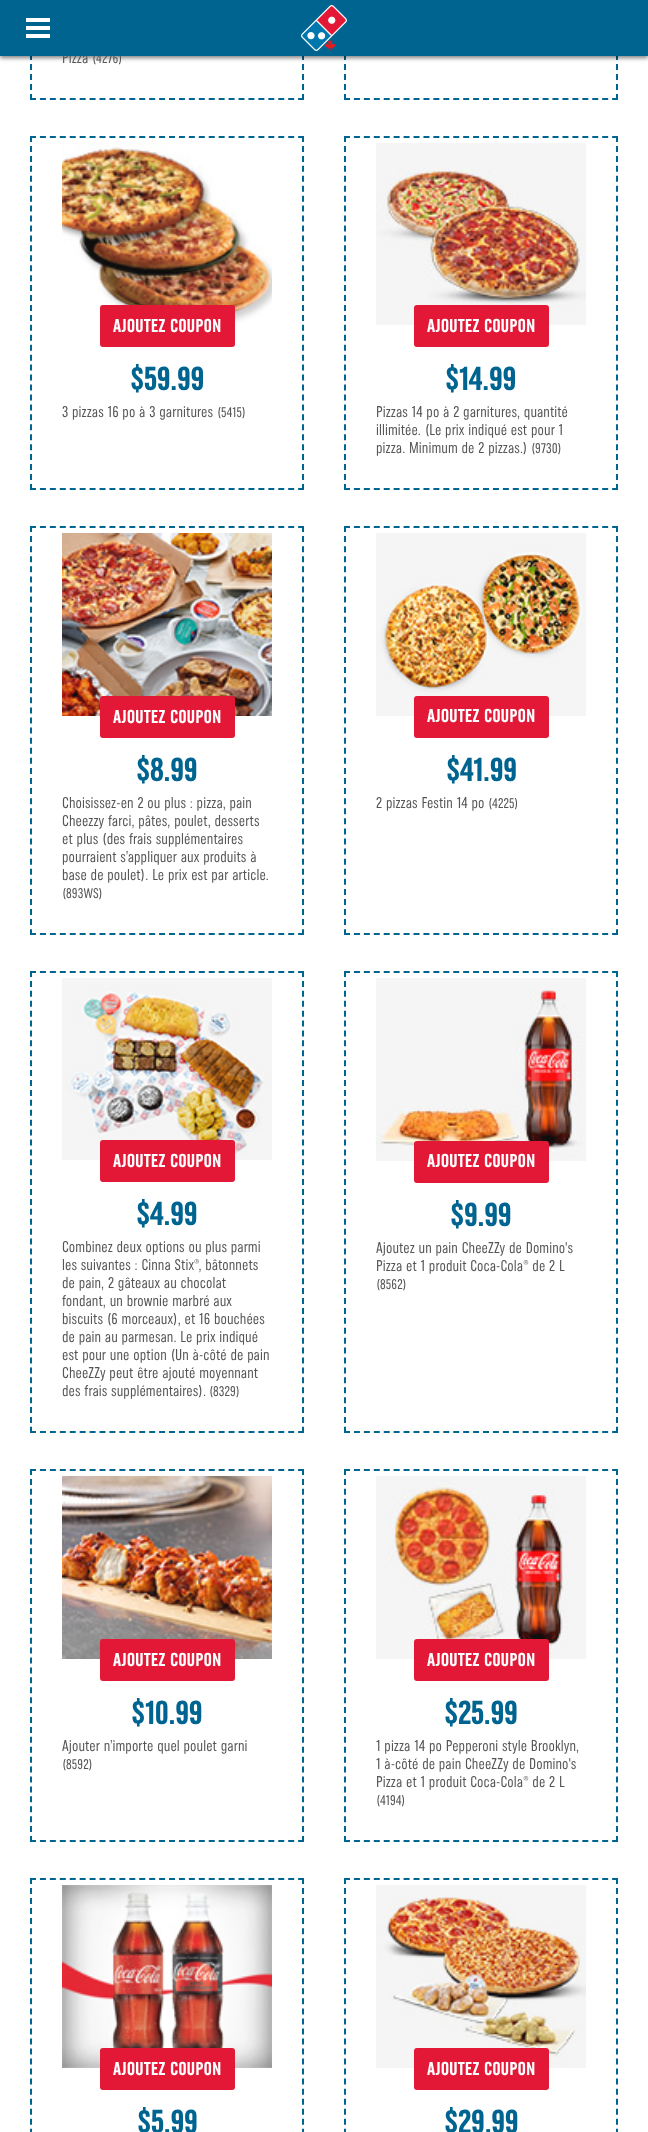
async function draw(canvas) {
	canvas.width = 648;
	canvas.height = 2132;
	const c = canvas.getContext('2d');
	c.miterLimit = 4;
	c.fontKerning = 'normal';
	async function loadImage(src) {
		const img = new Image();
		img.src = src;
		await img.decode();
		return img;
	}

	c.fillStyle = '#fff';
	c.fillRect(0, 0, 648, 2132);
	c.beginPath();
	c.moveTo(303, -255);
	c.lineTo(303, 100);
	c.strokeStyle = '#006491';
	c.lineWidth = 2;
	c.setLineDash([6, 3.97]);
	c.stroke();
	c.beginPath();
	c.moveTo(30, 99);
	c.lineTo(304, 99);
	c.setLineDash([6, 3.93]);
	c.stroke();
	c.beginPath();
	c.moveTo(31, -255);
	c.lineTo(31, 100);
	c.setLineDash([6, 3.97]);
	c.stroke();
	c.beginPath();
	c.moveTo(617, -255);
	c.lineTo(617, 100);
	c.stroke();
	c.beginPath();
	c.moveTo(344, 99);
	c.lineTo(618, 99);
	c.setLineDash([6, 3.93]);
	c.stroke();
	c.beginPath();
	c.moveTo(345, -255);
	c.lineTo(345, 100);
	c.setLineDash([6, 3.97]);
	c.stroke();
	c.fillStyle = '#00000080';
	c.filter = 'blur(2px)';
	c.beginPath();
	c.rect(0, 2, 648, 56);
	c.fill();
	c.filter = 'none';
	c.letterSpacing = '0.1px';
	c.font = '15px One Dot';
	c.fillStyle = '#555';
	c.fillText('Pizza', 62, 63);
	c.font = '13.5px One Dot';
	c.fillText('(4276)', 92, 63);
	for (const [x, y, w, h, color] of [
		[0, 0, 648, 56, '#006491'],
		[26, 18, 24, 4, '#fff'],
		[26, 26, 24, 4, '#fff'],
		[26, 34, 24, 4, '#fff'],
	]) {
		c.fillStyle = color;
		c.fillRect(x, y, w, h);
	}
	c.drawImage(await loadImage('img1.png'), 301, 5, 46, 46);
	c.beginPath();
	c.moveTo(30, 137);
	c.lineTo(304, 137);
	c.setLineDash([6, 3.93]);
	c.stroke();
	c.beginPath();
	c.moveTo(303, 136);
	c.lineTo(303, 490);
	c.setLineDash([6, 3.94]);
	c.stroke();
	c.beginPath();
	c.moveTo(30, 489);
	c.lineTo(304, 489);
	c.setLineDash([6, 3.93]);
	c.stroke();
	c.beginPath();
	c.moveTo(31, 136);
	c.lineTo(31, 490);
	c.setLineDash([6, 3.94]);
	c.stroke();
	c.drawImage(await loadImage('img2.png'), 62, 143, 210, 182);
	c.fillStyle = '#e31837';
	c.beginPath();
	c.roundRect(100, 305, 135, 42, 3);
	c.fill();
	c.letterSpacing = '0px';
	c.font = 'bold 18px One Dot';
	c.fillStyle = '#fff';
	c.fillText('AJOUTEZ COUPON', 113, 332);
	c.letterSpacing = '-0.75px';
	c.font = 'bold 32px One Dot';
	c.fillStyle = '#006491';
	c.fillText('$59.99', 130, 390);
	c.letterSpacing = '0.1px';
	c.font = '15px One Dot';
	c.fillStyle = '#555';
	c.fillText('3 pizzas 16 po à 3 garnitures', 62, 417);
	c.font = '13.5px One Dot';
	c.fillText('(5415)', 217, 417);
	c.beginPath();
	c.moveTo(344, 137);
	c.lineTo(618, 137);
	c.setLineDash([6, 3.93]);
	c.stroke();
	c.beginPath();
	c.moveTo(617, 136);
	c.lineTo(617, 490);
	c.setLineDash([6, 3.94]);
	c.stroke();
	c.beginPath();
	c.moveTo(344, 489);
	c.lineTo(618, 489);
	c.setLineDash([6, 3.93]);
	c.stroke();
	c.beginPath();
	c.moveTo(345, 136);
	c.lineTo(345, 490);
	c.setLineDash([6, 3.94]);
	c.stroke();
	c.drawImage(await loadImage('img3.png'), 376, 143, 210, 182);
	c.fillStyle = '#e31837';
	c.beginPath();
	c.roundRect(414, 305, 135, 42, 3);
	c.fill();
	c.letterSpacing = '0px';
	c.font = 'bold 18px One Dot';
	c.fillStyle = '#fff';
	c.fillText('AJOUTEZ COUPON', 427, 332);
	c.letterSpacing = '-0.75px';
	c.font = 'bold 32px One Dot';
	c.fillStyle = '#006491';
	c.fillText('$14.99', 445, 390);
	c.letterSpacing = '0.1px';
	c.font = '15px One Dot';
	c.fillStyle = '#555';
	for (const [text, x, y] of [
		['Pizzas 14 po à 2 garnitures, quantité', 376, 417],
		['illimitée. (Le prix indiqué est pour 1', 376, 435],
		['pizza. Minimum de 2 pizzas.)', 376, 453],
	]) {
		c.fillText(text, x, y);
	}
	c.font = '13.5px One Dot';
	c.fillText('(9730)', 531, 453);
	c.beginPath();
	c.moveTo(30, 527);
	c.lineTo(304, 527);
	c.setLineDash([6, 3.93]);
	c.stroke();
	c.beginPath();
	c.moveTo(303, 526);
	c.lineTo(303, 935);
	c.setLineDash([6, 4.08]);
	c.stroke();
	c.beginPath();
	c.moveTo(30, 934);
	c.lineTo(304, 934);
	c.setLineDash([6, 3.93]);
	c.stroke();
	c.beginPath();
	c.moveTo(31, 526);
	c.lineTo(31, 935);
	c.setLineDash([6, 4.08]);
	c.stroke();
	c.drawImage(await loadImage('img4.png'), 62, 533, 210, 183);
	c.fillStyle = '#e31837';
	c.beginPath();
	c.roundRect(100, 696, 135, 42, 3);
	c.fill();
	c.letterSpacing = '0px';
	c.font = 'bold 18px One Dot';
	c.fillStyle = '#fff';
	c.fillText('AJOUTEZ COUPON', 113, 723);
	c.letterSpacing = '-0.75px';
	c.font = 'bold 32px One Dot';
	c.fillStyle = '#006491';
	c.fillText('$8.99', 136, 781);
	c.letterSpacing = '0.1px';
	c.font = '15px One Dot';
	c.fillStyle = '#555';
	for (const [text, x, y] of [
		['Choisissez-en 2 ou plus : pizza, pain', 62, 808],
		['Cheezzy farci, pâtes, poulet, desserts', 62, 826],
		['et plus (des frais supplémentaires', 62, 844],
		['pourraient s’appliquer aux produits à', 62, 862],
		['base de poulet). Le prix est par article.', 62, 880],
	]) {
		c.fillText(text, x, y);
	}
	c.font = '13.5px One Dot';
	c.fillText('(893WS)', 62, 898);
	c.beginPath();
	c.moveTo(344, 527);
	c.lineTo(618, 527);
	c.setLineDash([6, 3.93]);
	c.stroke();
	c.beginPath();
	c.moveTo(617, 526);
	c.lineTo(617, 935);
	c.setLineDash([6, 4.08]);
	c.stroke();
	c.beginPath();
	c.moveTo(344, 934);
	c.lineTo(618, 934);
	c.setLineDash([6, 3.93]);
	c.stroke();
	c.beginPath();
	c.moveTo(345, 526);
	c.lineTo(345, 935);
	c.setLineDash([6, 4.08]);
	c.stroke();
	c.drawImage(await loadImage('img5.png'), 376, 533, 210, 183);
	c.fillStyle = '#e31837';
	c.beginPath();
	c.roundRect(414, 696, 135, 42, 3);
	c.fill();
	c.letterSpacing = '0px';
	c.font = 'bold 18px One Dot';
	c.fillStyle = '#fff';
	c.fillText('AJOUTEZ COUPON', 427, 722);
	c.letterSpacing = '-0.75px';
	c.font = 'bold 32px One Dot';
	c.fillStyle = '#006491';
	c.fillText('$41.99', 446, 781);
	c.letterSpacing = '0.1px';
	c.font = '15px One Dot';
	c.fillStyle = '#555';
	c.fillText('2 pizzas Festin 14 po', 376, 808);
	c.font = '13.5px One Dot';
	c.fillText('(4225)', 488, 808);
	c.beginPath();
	c.moveTo(30, 972);
	c.lineTo(304, 972);
	c.setLineDash([6, 3.93]);
	c.stroke();
	c.beginPath();
	c.moveTo(303, 971);
	c.lineTo(303, 1433);
	c.setLineDash([6, 3.91]);
	c.stroke();
	c.beginPath();
	c.moveTo(30, 1432);
	c.lineTo(304, 1432);
	c.setLineDash([6, 3.93]);
	c.stroke();
	c.beginPath();
	c.moveTo(31, 971);
	c.lineTo(31, 1433);
	c.setLineDash([6, 3.91]);
	c.stroke();
	c.drawImage(await loadImage('img6.png'), 62, 978, 210, 182);
	c.fillStyle = '#e31837';
	c.beginPath();
	c.roundRect(100, 1140, 135, 42, 3);
	c.fill();
	c.letterSpacing = '0px';
	c.font = 'bold 18px One Dot';
	c.fillStyle = '#fff';
	c.fillText('AJOUTEZ COUPON', 113, 1167);
	c.letterSpacing = '-0.75px';
	c.font = 'bold 32px One Dot';
	c.fillStyle = '#006491';
	c.fillText('$4.99', 136, 1225);
	c.letterSpacing = '0.1px';
	c.font = '15px One Dot';
	c.fillStyle = '#555';
	for (const [text, x, y] of [
		['Combinez deux options ou plus parmi', 62, 1252],
		['les suivantes : Cinna Stix®, bâtonnets', 62, 1270],
		['de pain, 2 gâteaux au chocolat', 62, 1288],
		['fondant, un brownie marbré aux', 62, 1306],
		['biscuits (6 morceaux), et 16 bouchées', 62, 1324],
		['de pain au parmesan. Le prix indiqué', 62, 1342],
		['est pour une option (Un à-côté de pain', 62, 1360],
		['CheeZZy peut être ajouté moyennant', 62, 1378],
		['des frais supplémentaires).', 62, 1396],
	]) {
		c.fillText(text, x, y);
	}
	c.font = '13.5px One Dot';
	c.fillText('(8329)', 209, 1396);
	c.beginPath();
	c.moveTo(344, 972);
	c.lineTo(618, 972);
	c.setLineDash([6, 3.93]);
	c.stroke();
	c.beginPath();
	c.moveTo(617, 971);
	c.lineTo(617, 1433);
	c.setLineDash([6, 3.91]);
	c.stroke();
	c.beginPath();
	c.moveTo(344, 1432);
	c.lineTo(618, 1432);
	c.setLineDash([6, 3.93]);
	c.stroke();
	c.beginPath();
	c.moveTo(345, 971);
	c.lineTo(345, 1433);
	c.setLineDash([6, 3.91]);
	c.stroke();
	c.drawImage(await loadImage('img7.png'), 376, 978, 210, 183);
	c.fillStyle = '#e31837';
	c.beginPath();
	c.roundRect(414, 1141, 135, 42, 3);
	c.fill();
	c.letterSpacing = '0px';
	c.font = 'bold 18px One Dot';
	c.fillStyle = '#fff';
	c.fillText('AJOUTEZ COUPON', 427, 1167);
	c.letterSpacing = '-0.75px';
	c.font = 'bold 32px One Dot';
	c.fillStyle = '#006491';
	c.fillText('$9.99', 450, 1226);
	c.letterSpacing = '0.1px';
	c.font = '15px One Dot';
	c.fillStyle = '#555';
	c.fillText('Ajoutez un pain CheeZZy de Domino\'s', 376, 1253);
	c.fillText('Pizza et 1 produit Coca-Cola® de 2 L', 376, 1271);
	c.font = '13.5px One Dot';
	c.fillText('(8562)', 376, 1289);
	c.beginPath();
	c.moveTo(30, 1470);
	c.lineTo(304, 1470);
	c.setLineDash([6, 3.93]);
	c.stroke();
	c.beginPath();
	c.moveTo(303, 1469);
	c.lineTo(303, 1842);
	c.setLineDash([6, 3.92]);
	c.stroke();
	c.beginPath();
	c.moveTo(30, 1841);
	c.lineTo(304, 1841);
	c.setLineDash([6, 3.93]);
	c.stroke();
	c.beginPath();
	c.moveTo(31, 1469);
	c.lineTo(31, 1842);
	c.setLineDash([6, 3.92]);
	c.stroke();
	c.drawImage(await loadImage('img8.png'), 62, 1476, 210, 183);
	c.fillStyle = '#e31837';
	c.beginPath();
	c.roundRect(100, 1639, 135, 42, 3);
	c.fill();
	c.letterSpacing = '0px';
	c.font = 'bold 18px One Dot';
	c.fillStyle = '#fff';
	c.fillText('AJOUTEZ COUPON', 113, 1666);
	c.letterSpacing = '-0.75px';
	c.font = 'bold 32px One Dot';
	c.fillStyle = '#006491';
	c.fillText('$10.99', 131, 1724);
	c.letterSpacing = '0.1px';
	c.font = '15px One Dot';
	c.fillStyle = '#555';
	c.fillText('Ajouter n’importe quel poulet garni', 62, 1751);
	c.font = '13.5px One Dot';
	c.fillText('(8592)', 62, 1769);
	c.beginPath();
	c.moveTo(344, 1470);
	c.lineTo(618, 1470);
	c.setLineDash([6, 3.93]);
	c.stroke();
	c.beginPath();
	c.moveTo(617, 1469);
	c.lineTo(617, 1842);
	c.setLineDash([6, 3.92]);
	c.stroke();
	c.beginPath();
	c.moveTo(344, 1841);
	c.lineTo(618, 1841);
	c.setLineDash([6, 3.93]);
	c.stroke();
	c.beginPath();
	c.moveTo(345, 1469);
	c.lineTo(345, 1842);
	c.setLineDash([6, 3.92]);
	c.stroke();
	c.drawImage(await loadImage('img9.png'), 376, 1476, 210, 183);
	c.fillStyle = '#e31837';
	c.beginPath();
	c.roundRect(414, 1639, 135, 42, 3);
	c.fill();
	c.letterSpacing = '0px';
	c.font = 'bold 18px One Dot';
	c.fillStyle = '#fff';
	c.fillText('AJOUTEZ COUPON', 427, 1666);
	c.letterSpacing = '-0.75px';
	c.font = 'bold 32px One Dot';
	c.fillStyle = '#006491';
	c.fillText('$25.99', 444, 1724);
	c.letterSpacing = '0.1px';
	c.font = '15px One Dot';
	c.fillStyle = '#555';
	for (const [text, x, y] of [
		['1 pizza 14 po Pepperoni style Brooklyn,', 376, 1751],
		['1 à-côté de pain CheeZZy de Domino\'s', 376, 1769],
		['Pizza et 1 produit Coca-Cola® de 2 L', 376, 1787],
	]) {
		c.fillText(text, x, y);
	}
	c.font = '13.5px One Dot';
	c.fillText('(4194)', 376, 1805);
	c.beginPath();
	c.moveTo(30, 1879);
	c.lineTo(304, 1879);
	c.setLineDash([6, 3.93]);
	c.stroke();
	c.beginPath();
	c.moveTo(303, 1878);
	c.lineTo(303, 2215);
	c.setLineDash([6, 4.03]);
	c.stroke();
	c.beginPath();
	c.moveTo(31, 1878);
	c.lineTo(31, 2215);
	c.stroke();
	c.drawImage(await loadImage('img10.png'), 62, 1885, 210, 183);
	c.fillStyle = '#e31837';
	c.beginPath();
	c.roundRect(100, 2048, 135, 42, 3);
	c.fill();
	c.letterSpacing = '0px';
	c.font = 'bold 18px One Dot';
	c.fillStyle = '#fff';
	c.fillText('AJOUTEZ COUPON', 113, 2075);
	c.letterSpacing = '-0.75px';
	c.font = 'bold 32px One Dot';
	c.fillStyle = '#006491';
	c.fillText('$5.99', 137, 2133);
	c.beginPath();
	c.moveTo(344, 1879);
	c.lineTo(618, 1879);
	c.setLineDash([6, 3.93]);
	c.stroke();
	c.beginPath();
	c.moveTo(617, 1878);
	c.lineTo(617, 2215);
	c.setLineDash([6, 4.03]);
	c.stroke();
	c.beginPath();
	c.moveTo(345, 1878);
	c.lineTo(345, 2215);
	c.stroke();
	c.drawImage(await loadImage('img11.png'), 376, 1885, 210, 183);
	c.fillStyle = '#e31837';
	c.beginPath();
	c.roundRect(414, 2048, 135, 42, 3);
	c.fill();
	c.letterSpacing = '0px';
	c.font = 'bold 18px One Dot';
	c.fillStyle = '#fff';
	c.fillText('AJOUTEZ COUPON', 427, 2075);
	c.letterSpacing = '-0.75px';
	c.font = 'bold 32px One Dot';
	c.fillStyle = '#006491';
	c.fillText('$29.99', 444, 2133);
}

draw(document.querySelector('canvas'));
